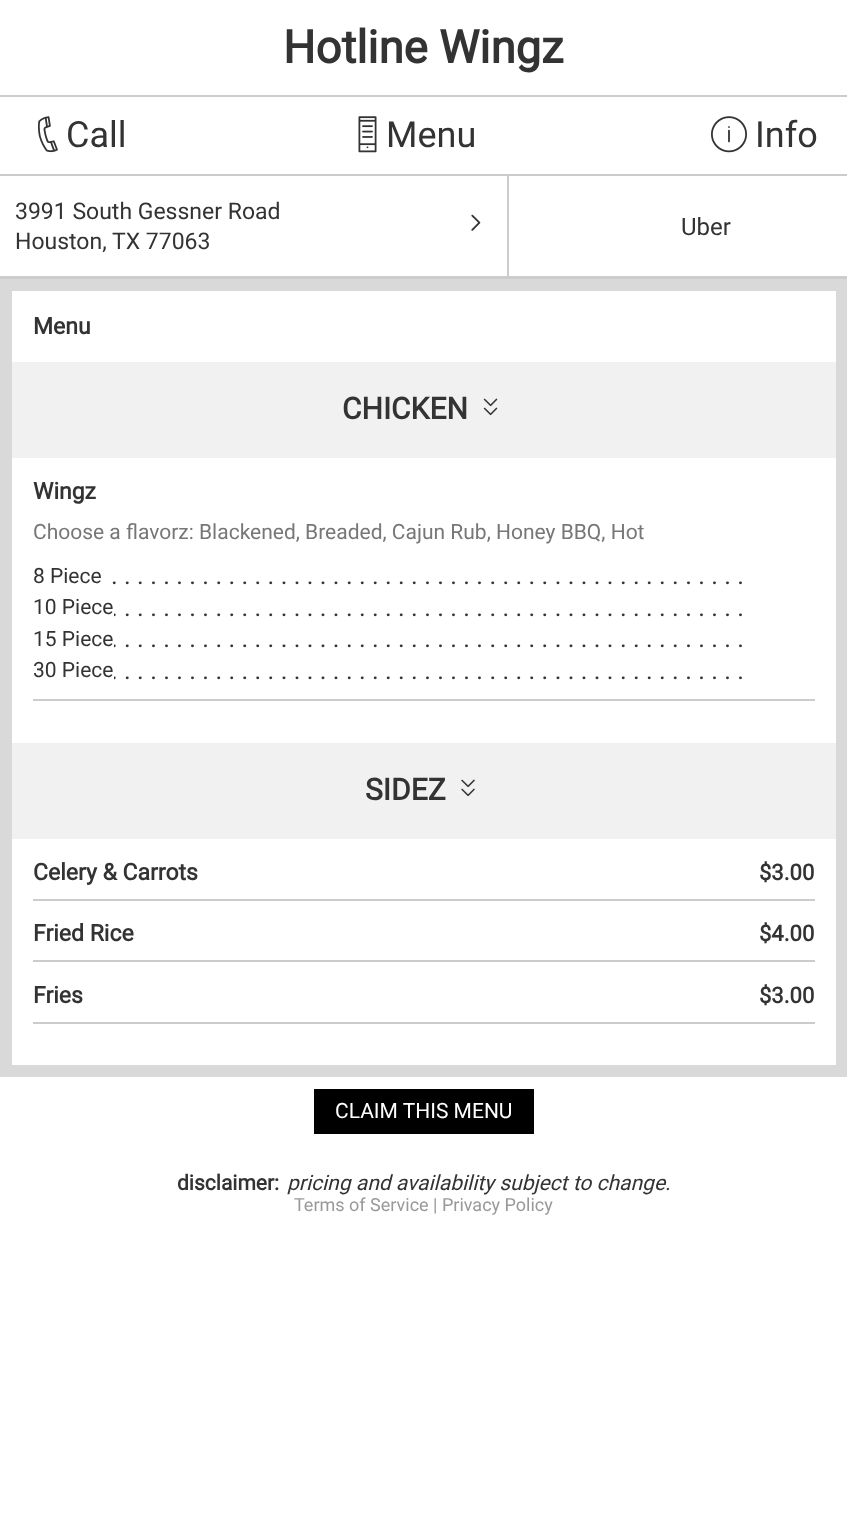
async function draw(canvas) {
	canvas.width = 847;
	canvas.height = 1521;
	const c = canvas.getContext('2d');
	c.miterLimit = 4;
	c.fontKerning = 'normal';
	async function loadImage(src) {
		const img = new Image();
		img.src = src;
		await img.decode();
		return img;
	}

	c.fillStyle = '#fff';
	c.fillRect(0, 0, 847, 1521);
	c.font = 'bold 45.5px Roboto';
	c.fillStyle = '#333';
	c.fillText('Hotline Wingz', 283, 63);
	c.fillStyle = '#ccc';
	c.fillRect(0, 95, 847, 2);
	c.fillRect(0, 174, 847, 2);
	c.drawImage(await loadImage('img1.png'), 38, 116, 20, 37);
	c.font = '36px Roboto';
	c.fillStyle = '#333';
	c.fillText('Call', 66, 147);
	c.drawImage(await loadImage('img2.png'), 358, 116, 19, 37);
	c.fillText('Menu', 386, 147);
	c.drawImage(await loadImage('img3.png'), 711, 116, 36, 37);
	c.fillText('Info', 755, 147);
	c.fillStyle = '#ccc';
	c.fillRect(507, 176, 2, 102);
	c.fillRect(0, 276, 509, 2);
	c.font = '23px Roboto';
	c.fillStyle = '#333';
	c.fillText('3991 South Gessner Road', 15, 219);
	c.fillText('Houston, TX 77063', 15, 249);
	c.drawImage(await loadImage('img4.png'), 471, 214, 10, 17);
	c.fillStyle = '#ccc';
	c.fillRect(509, 276, 338, 2);
	c.font = '24px Roboto';
	c.fillStyle = '#333';
	c.fillText('Uber', 681, 235);
	c.fillStyle = '#ccc';
	c.fillRect(0, 278, 847, 1);
	c.strokeStyle = '#d9d9d9';
	c.lineWidth = 12;
	c.strokeRect(6, 285, 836, 786);
	c.font = 'bold 23px Roboto';
	c.fillStyle = '#333';
	c.fillText('Menu', 33, 334);
	c.fillStyle = '#f1f1f1';
	c.fillRect(12, 362, 824, 96);
	c.font = 'bold 30px Roboto';
	c.fillStyle = '#333';
	c.fillText('CHICKEN', 342, 419);
	c.drawImage(await loadImage('img5.png'), 483, 398, 15, 18);
	c.font = 'bold 23px Roboto';
	c.fillText('Wingz', 33, 499);
	c.font = '21px Roboto';
	c.fillStyle = '#777';
	c.fillText('Choose a flavorz: Blackened, Breaded, Cajun Rub, Honey BBQ, Hot', 33, 539);
	c.fillStyle = '#333';
	c.fillText('8 Piece', 33, 583);
	c.font = '25.5px Roboto';
	c.fillText('. . . . . . . . . . . . . . . . . . . . . . . . . . . . . . . . . . . . . . . . . . . . . . . . .', 111, 584);
	c.fillText('. . . . . . . . . . . . . . . . . . . . . . . . . . . . . . . . . . . . . . . . . . . . . . . . .', 111, 616);
	c.fillStyle = '#fff';
	c.fillRect(112, 613, 2, 4);
	c.font = '21px Roboto';
	c.fillStyle = '#333';
	c.fillText('10 Piece', 33, 614);
	c.font = '25.5px Roboto';
	c.fillText('. . . . . . . . . . . . . . . . . . . . . . . . . . . . . . . . . . . . . . . . . . . . . . . . .', 111, 647);
	c.fillStyle = '#fff';
	c.fillRect(112, 644, 2, 4);
	c.font = '21px Roboto';
	c.fillStyle = '#333';
	c.fillText('15 Piece', 33, 646);
	c.font = '25.5px Roboto';
	c.fillText('. . . . . . . . . . . . . . . . . . . . . . . . . . . . . . . . . . . . . . . . . . . . . . . . .', 111, 679);
	c.fillStyle = '#fff';
	c.fillRect(112, 676, 2, 4);
	c.font = '21px Roboto';
	c.fillStyle = '#333';
	c.fillText('30 Piece', 33, 677);
	c.fillStyle = '#ccc';
	c.fillRect(33, 699, 782, 2);
	c.fillStyle = '#f1f1f1';
	c.fillRect(12, 743, 824, 96);
	c.font = 'bold 30px Roboto';
	c.fillStyle = '#333';
	c.fillText('SIDEZ', 365, 800);
	c.drawImage(await loadImage('img6.png'), 461, 779, 14, 18);
	c.font = 'bold 23px Roboto';
	c.fillText('Celery & Carrots', 33, 880);
	c.font = 'bold 22px Roboto';
	c.fillText('$3.00', 759, 880);
	c.fillStyle = '#ccc';
	c.fillRect(33, 899, 782, 2);
	c.font = 'bold 23px Roboto';
	c.fillStyle = '#333';
	c.fillText('Fried Rice', 33, 941);
	c.font = 'bold 22px Roboto';
	c.fillText('$4.00', 759, 941);
	c.fillStyle = '#ccc';
	c.fillRect(33, 960, 782, 2);
	c.font = 'bold 23px Roboto';
	c.fillStyle = '#333';
	c.fillText('Fries', 33, 1003);
	c.font = 'bold 22px Roboto';
	c.fillText('$3.00', 759, 1003);
	c.fillStyle = '#ccc';
	c.fillRect(33, 1022, 782, 2);
	c.fillStyle = '#000';
	c.fillRect(314, 1089, 220, 45);
	c.font = '21px Roboto';
	c.fillStyle = '#fff';
	c.fillText('CLAIM THIS MENU', 335, 1118);
	c.font = 'bold 21px Roboto';
	c.fillStyle = '#333';
	c.fillText('disclaimer:', 177, 1190);
	c.font = 'italic 21px Roboto';
	c.fillText('pricing and availability subject to change.', 287, 1190);
	c.font = '18px Roboto';
	c.fillStyle = '#999';
	c.fillText('Terms of Service | Privacy Policy', 294, 1211);
}

draw(document.querySelector('canvas'));
